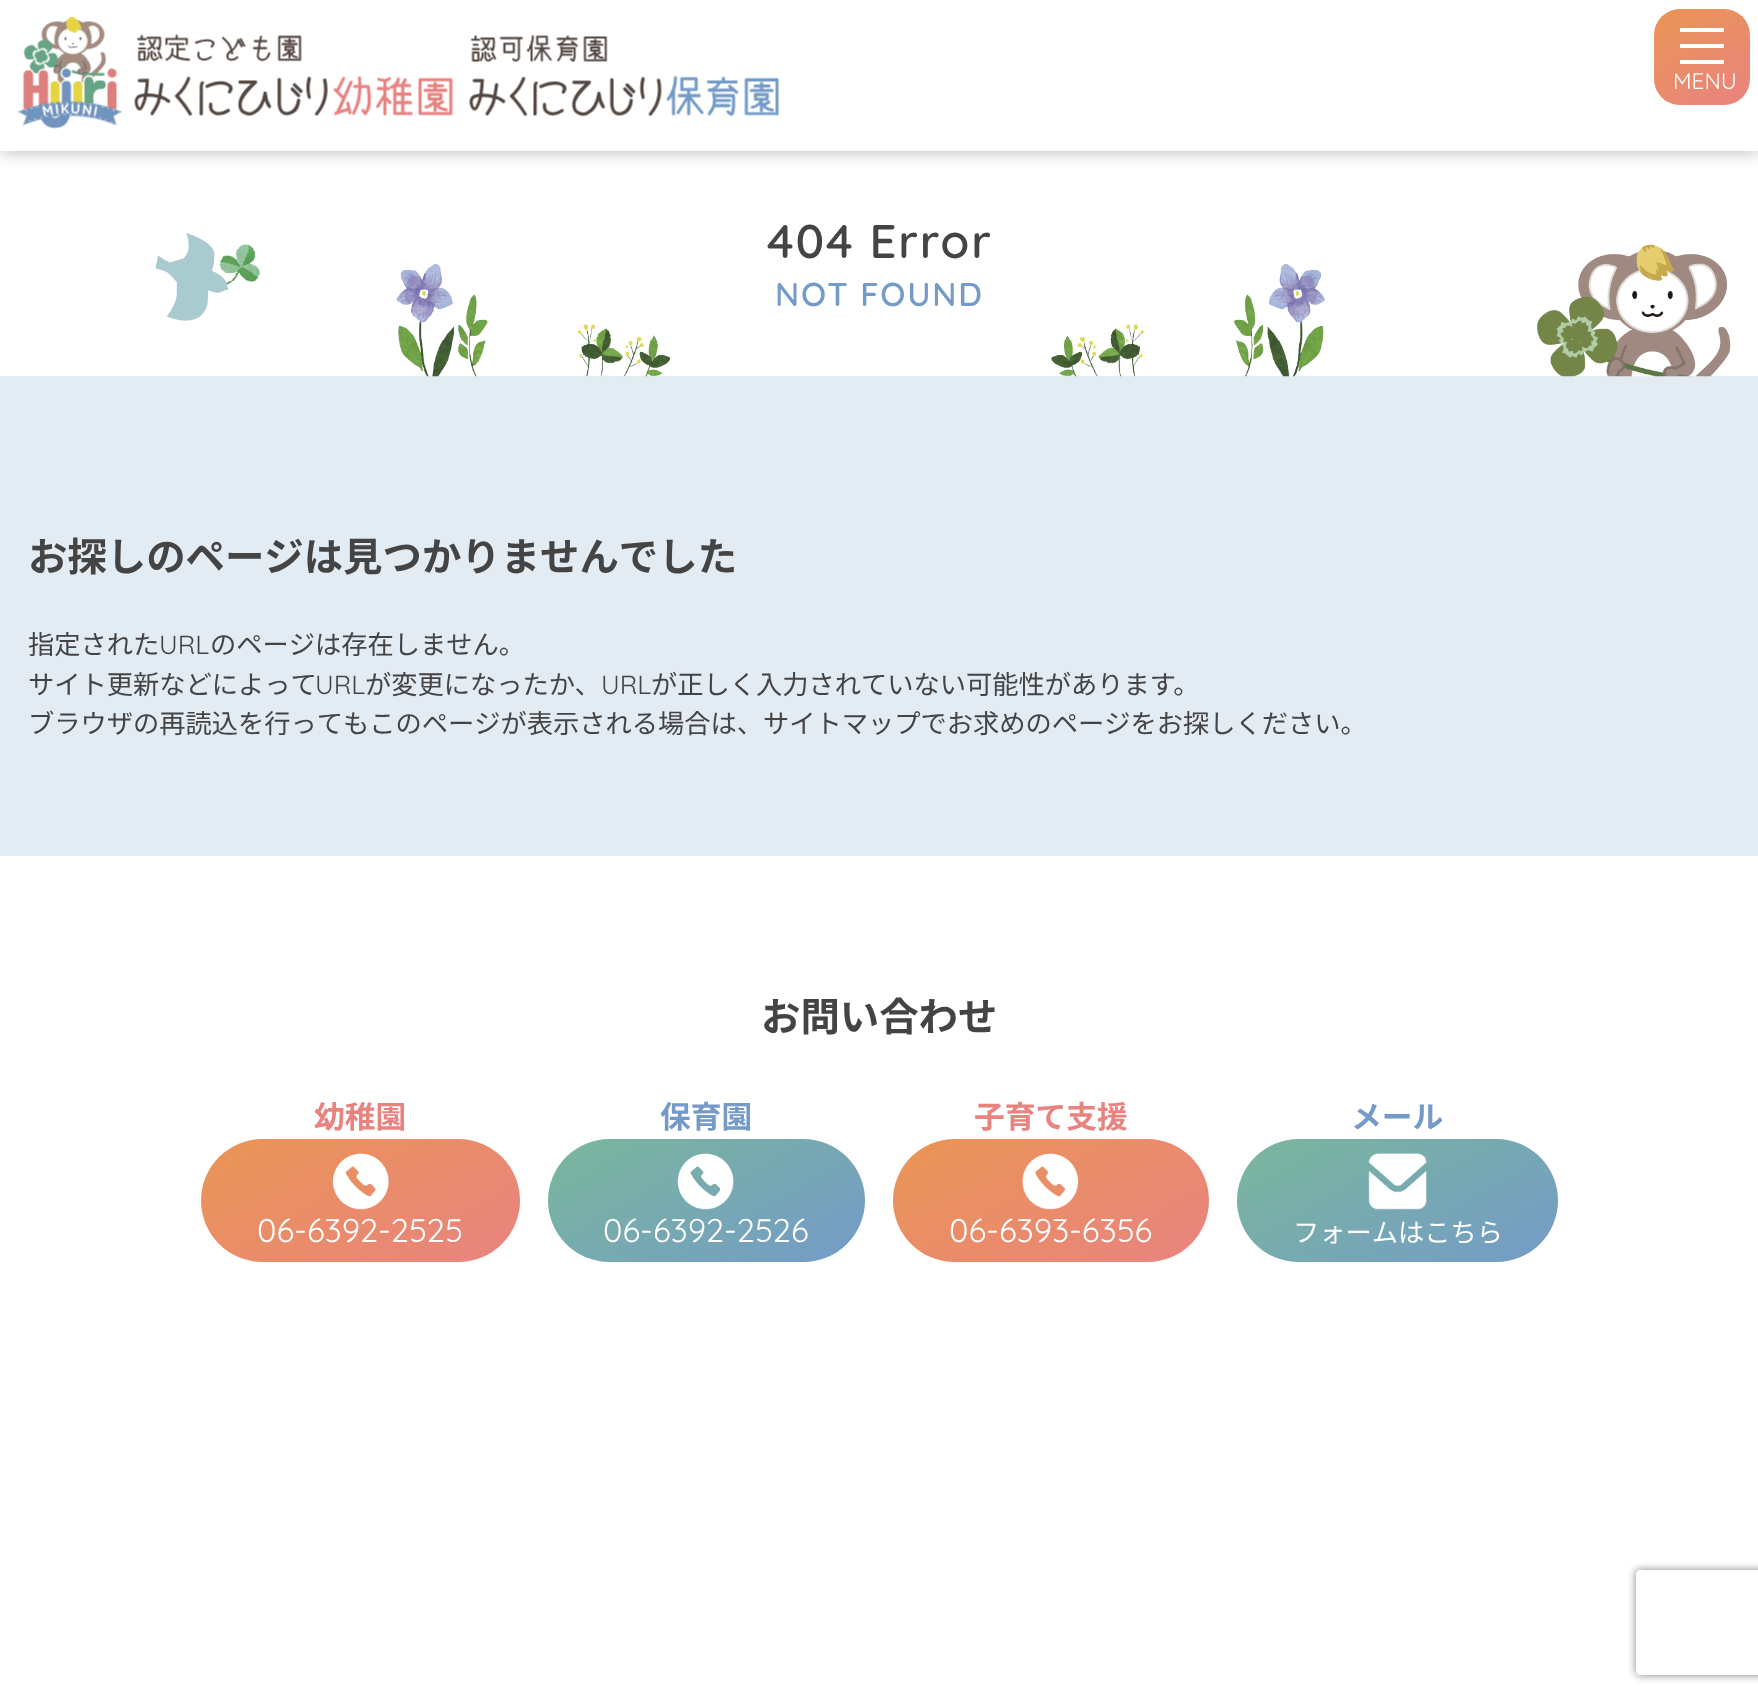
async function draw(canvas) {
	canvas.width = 1758;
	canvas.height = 1699;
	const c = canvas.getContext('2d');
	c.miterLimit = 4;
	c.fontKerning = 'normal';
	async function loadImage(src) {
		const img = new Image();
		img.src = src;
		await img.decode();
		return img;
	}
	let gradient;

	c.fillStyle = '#fff';
	c.fillRect(0, 0, 1758, 1699);
	c.fillStyle = '#0000004d';
	c.filter = 'blur(9px)';
	c.beginPath();
	c.rect(0, 0, 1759, 151);
	c.fill();
	c.filter = 'none';
	c.fillStyle = '#fff';
	c.fillRect(0, 0, 1758, 151);
	c.drawImage(await loadImage('img1.png'), 18, 17, 761, 112);
	gradient = c.createLinearGradient(1669, -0.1, 1735, 114);
	gradient.addColorStop(0, '#ea9554');
	gradient.addColorStop(1, '#e98380');
	c.fillStyle = gradient;
	c.beginPath();
	c.roundRect(1654, 9, 96, 96, 26);
	c.fill();
	for (const [x, y, w, h, color] of [
		[1680, 44, 44, 4, '#fff'],
		[1680, 28, 44, 4, '#fff'],
		[1680, 60, 44, 4, '#fff'],
	]) {
		c.fillStyle = color;
		c.fillRect(x, y, w, h);
	}
	c.font = '22.5px Quicksand';
	c.fillText('MENU', 1673, 89);
	c.fillStyle = '#e3ebf3';
	c.fillRect(0, 376, 1758, 480);
	c.drawImage(await loadImage('img2.png'), 155, 233, 1576, 144);
	c.letterSpacing = '1.75px';
	c.font = '600 47.25px Quicksand';
	c.fillStyle = '#444';
	c.fillText('404 Error', 767, 258);
	c.font = '600 33px Quicksand';
	c.fillStyle = '#749bc8';
	c.fillText('NOT FOUND', 775, 306);
	c.letterSpacing = '0px';
	c.font = 'bold 39.4px Noto Sans JP';
	c.fillStyle = '#444';
	c.fillText('お探しのページは見つかりませんでした', 28, 571);
	c.font = '26.25px Noto Sans JP';
	c.fillText('指定された', 28, 654);
	c.font = '26.25px Quicksand';
	c.fillText('URL', 159, 654);
	c.font = '26.25px Noto Sans JP';
	c.fillText('のページは存在しません。', 210, 654);
	c.fillText('サイト更新などによって', 28, 694);
	c.font = '26.25px Quicksand';
	c.fillText('URL', 315, 694);
	c.font = '26.25px Noto Sans JP';
	c.fillText('が変更になったか、', 365, 694);
	c.font = '26.25px Quicksand';
	c.fillText('URL', 601, 694);
	c.font = '26.25px Noto Sans JP';
	c.fillText('が正しく入力されていない可能性があります。', 651, 694);
	c.fillText('ブラウザの再読込を行ってもこのページが表示される場合は、サイトマップでお求めのページをお探しください。', 28, 733);
	c.font = 'bold 39.4px Noto Sans JP';
	c.fillText('お問い合わせ', 761, 1031);
	c.font = 'bold 30.75px Noto Sans JP';
	c.fillStyle = '#e98380';
	c.fillText('幼稚園', 314, 1128);
	gradient = c.createLinearGradient(294, 1086, 427, 1315);
	gradient.addColorStop(0, '#ea9554');
	gradient.addColorStop(1, '#e98380');
	c.fillStyle = gradient;
	c.beginPath();
	c.roundRect(201, 1139, 319, 123, 61.5);
	c.fill();
	c.drawImage(await loadImage('img3.png'), 332, 1153, 57, 57);
	c.font = '32.75px Quicksand';
	c.fillStyle = '#fff';
	c.fillText('06-6392-2525', 257, 1242);
	c.font = 'bold 30.75px Noto Sans JP';
	c.fillStyle = '#749bc8';
	c.fillText('保育園', 660, 1128);
	gradient = c.createLinearGradient(640, 1086, 772, 1315);
	gradient.addColorStop(0, '#7ab79b');
	gradient.addColorStop(1, '#749bc8');
	c.fillStyle = gradient;
	c.beginPath();
	c.roundRect(548, 1139, 317, 123, 61.5);
	c.fill();
	c.drawImage(await loadImage('img4.png'), 677, 1153, 57, 57);
	c.font = '32.75px Quicksand';
	c.fillStyle = '#fff';
	c.fillText('06-6392-2526', 603, 1242);
	c.font = 'bold 30.75px Noto Sans JP';
	c.fillStyle = '#e98380';
	c.fillText('子育て支援', 974, 1128);
	gradient = c.createLinearGradient(985, 1086, 1117, 1315);
	gradient.addColorStop(0, '#ea9554');
	gradient.addColorStop(1, '#e98380');
	c.fillStyle = gradient;
	c.beginPath();
	c.roundRect(893, 1139, 316, 123, 61.5);
	c.fill();
	c.drawImage(await loadImage('img5.png'), 1022, 1153, 56, 57);
	c.font = '32.75px Quicksand';
	c.fillStyle = '#fff';
	c.fillText('06-6393-6356', 949, 1242);
	c.font = 'bold 30.75px Noto Sans JP';
	c.fillStyle = '#749bc8';
	c.fillText('メール', 1351, 1128);
	gradient = c.createLinearGradient(1331, 1085, 1464, 1316);
	gradient.addColorStop(0, '#7ab79b');
	gradient.addColorStop(1, '#749bc8');
	c.fillStyle = gradient;
	c.beginPath();
	c.roundRect(1237, 1139, 321, 123, 61.5);
	c.fill();
	c.drawImage(await loadImage('img6.png'), 1368, 1153, 59, 57);
	c.font = '26.25px Noto Sans JP';
	c.fillStyle = '#fff';
	c.fillText('フォームはこちら', 1293, 1242);
	c.save();
	c.beginPath();
	c.moveTo(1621, 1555);
	c.lineTo(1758, 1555);
	c.lineTo(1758, 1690);
	c.lineTo(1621, 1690);
	c.closePath();
	c.moveTo(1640, 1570);
	c.lineTo(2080, 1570);
	c.bezierCurveTo(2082, 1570, 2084, 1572, 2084, 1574);
	c.lineTo(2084, 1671);
	c.bezierCurveTo(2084, 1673, 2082, 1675, 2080, 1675);
	c.lineTo(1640, 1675);
	c.bezierCurveTo(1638, 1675, 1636, 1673, 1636, 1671);
	c.lineTo(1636, 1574);
	c.bezierCurveTo(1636, 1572, 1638, 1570, 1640, 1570);
	c.closePath();
	c.clip('evenodd');
	c.fillStyle = '#808080';
	c.filter = 'blur(4.5px)';
	c.beginPath();
	c.roundRect(1636, 1570, 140, 105, 4);
	c.fill();
	c.filter = 'none';
	c.restore();
}

draw(document.querySelector('canvas'));
